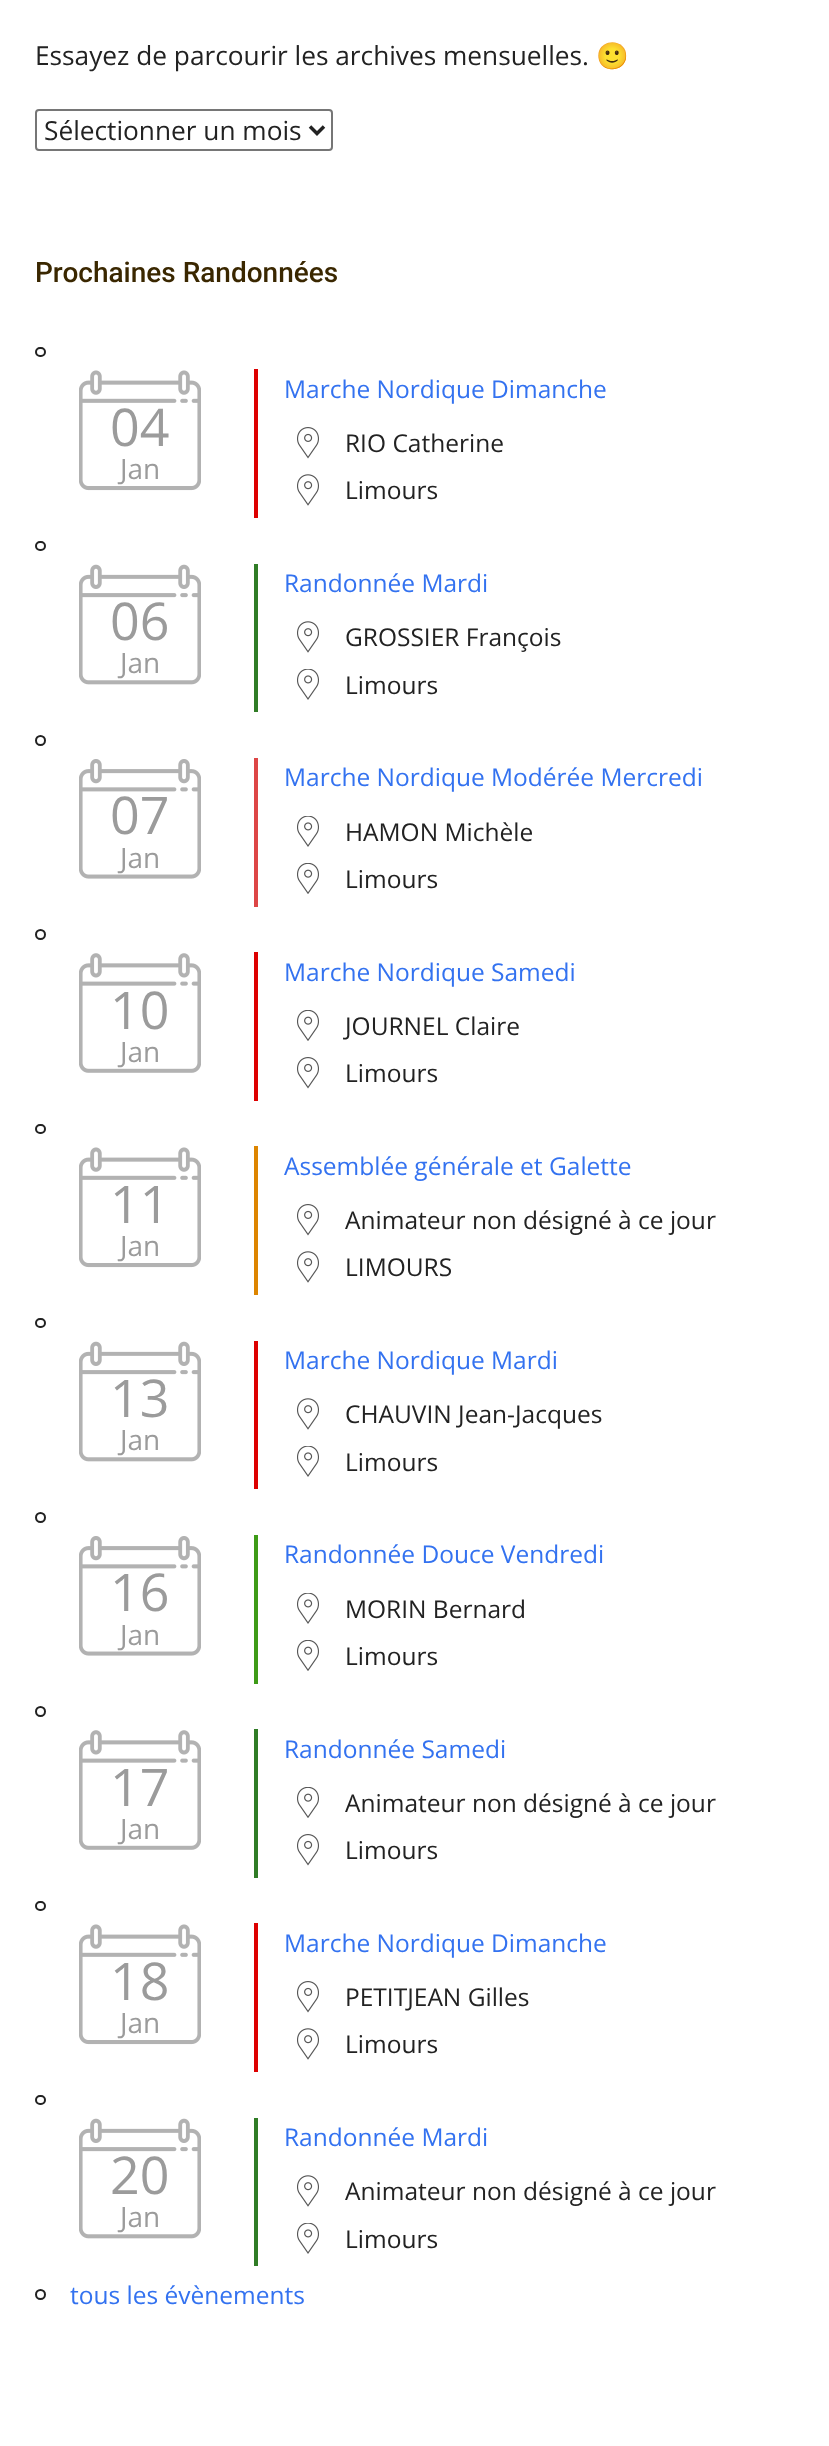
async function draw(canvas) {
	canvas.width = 829;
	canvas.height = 2446;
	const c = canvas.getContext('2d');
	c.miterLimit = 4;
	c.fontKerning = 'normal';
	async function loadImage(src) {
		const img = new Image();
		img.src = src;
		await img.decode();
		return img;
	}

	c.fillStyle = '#fff';
	c.fillRect(0, 0, 829, 2446);
	c.font = '26.25px Open Sans';
	c.fillStyle = '#222';
	c.fillText('Essayez de parcourir les archives mensuelles.', 35, 65);
	c.font = '26.25px Noto Color Emoji';
	c.fillText('🙂', 596, 65);
	c.beginPath();
	c.roundRect(36, 110, 296, 40, 3);
	c.strokeStyle = '#767676';
	c.lineWidth = 2;
	c.stroke();
	c.beginPath();
	c.moveTo(310, 126.5);
	c.lineTo(317, 133.5);
	c.lineTo(324, 126.5);
	c.strokeStyle = '#222';
	c.lineWidth = 3.5;
	c.stroke();
	c.font = '26.25px Open Sans';
	c.fillText('Sélectionner un mois', 44, 140);
	c.font = '500 28px Roboto';
	c.fillStyle = '#3a2700';
	c.fillText('Prochaines Randonnées', 35, 282);
	c.beginPath();
	c.roundRect(36, 348, 9, 8, 4);
	c.strokeStyle = '#212121';
	c.lineWidth = 2;
	c.stroke();
	c.drawImage(await loadImage('img1.png'), 79, 370, 122, 121);
	c.font = '52px Open Sans';
	c.fillStyle = '#9b9b9b';
	c.fillText('04', 110, 446);
	c.font = '28px Open Sans';
	c.fillText('Jan', 120, 479);
	c.fillStyle = '#d00';
	c.fillRect(254, 369, 4, 149);
	c.font = '24.5px Open Sans';
	c.fillStyle = '#3372f0';
	c.fillText('Marche Nordique Dimanche', 284, 398);
	c.drawImage(await loadImage('img2.png'), 297, 427, 22, 32);
	c.fillStyle = '#222';
	c.fillText('RIO Catherine', 345, 452);
	c.drawImage(await loadImage('img3.png'), 297, 474, 22, 32);
	c.fillText('Limours', 345, 499);
	c.beginPath();
	c.roundRect(36, 542, 9, 8, 4);
	c.stroke();
	c.drawImage(await loadImage('img4.png'), 79, 564, 122, 121);
	c.font = '52px Open Sans';
	c.fillStyle = '#9b9b9b';
	c.fillText('06', 110, 640);
	c.font = '28px Open Sans';
	c.fillText('Jan', 120, 673);
	c.fillStyle = '#307c26';
	c.fillRect(254, 564, 4, 148);
	c.font = '24.5px Open Sans';
	c.fillStyle = '#3372f0';
	c.fillText('Randonnée Mardi', 284, 592);
	c.drawImage(await loadImage('img3.png'), 297, 621, 22, 32);
	c.fillStyle = '#222';
	c.fillText('GROSSIER François', 345, 646);
	c.drawImage(await loadImage('img5.png'), 297, 669, 22, 31);
	c.fillText('Limours', 345, 694);
	c.beginPath();
	c.arc(40.5, 740.5, 4.5, 0, 2 * Math.PI);
	c.stroke();
	c.drawImage(await loadImage('img6.png'), 79, 759, 122, 120);
	c.font = '52px Open Sans';
	c.fillStyle = '#9b9b9b';
	c.fillText('07', 110, 834);
	c.font = '28px Open Sans';
	c.fillText('Jan', 120, 868);
	c.fillStyle = '#dd4646';
	c.fillRect(254, 758, 4, 149);
	c.font = '24.5px Open Sans';
	c.fillStyle = '#3372f0';
	c.fillText('Marche Nordique Modérée Mercredi', 284, 786);
	c.drawImage(await loadImage('img5.png'), 297, 816, 22, 31);
	c.fillStyle = '#222';
	c.fillText('HAMON Michèle', 345, 841);
	c.drawImage(await loadImage('img7.png'), 297, 863, 22, 31);
	c.fillText('Limours', 345, 888);
	c.beginPath();
	c.arc(40.5, 934.5, 4.5, 0, 2 * Math.PI);
	c.stroke();
	c.drawImage(await loadImage('img8.png'), 79, 953, 122, 120);
	c.font = '52px Open Sans';
	c.fillStyle = '#9b9b9b';
	c.fillText('10', 110, 1029);
	c.font = '28px Open Sans';
	c.fillText('Jan', 120, 1062);
	c.fillStyle = '#d00';
	c.fillRect(254, 952, 4, 149);
	c.font = '24.5px Open Sans';
	c.fillStyle = '#3372f0';
	c.fillText('Marche Nordique Samedi', 284, 981);
	c.drawImage(await loadImage('img7.png'), 297, 1010, 22, 31);
	c.fillStyle = '#222';
	c.fillText('JOURNEL Claire', 345, 1035);
	c.drawImage(await loadImage('img2.png'), 297, 1057, 22, 32);
	c.fillText('Limours', 345, 1082);
	c.beginPath();
	c.roundRect(36, 1125, 9, 8, 4);
	c.stroke();
	c.drawImage(await loadImage('img1.png'), 79, 1147, 122, 121);
	c.font = '52px Open Sans';
	c.fillStyle = '#9b9b9b';
	c.fillText('11', 110, 1223);
	c.font = '28px Open Sans';
	c.fillText('Jan', 120, 1256);
	c.fillStyle = '#dd8500';
	c.fillRect(254, 1146, 4, 149);
	c.font = '24.5px Open Sans';
	c.fillStyle = '#3372f0';
	c.fillText('Assemblée générale et Galette', 284, 1175);
	c.drawImage(await loadImage('img2.png'), 297, 1204, 22, 32);
	c.fillStyle = '#222';
	c.fillText('Animateur non désigné à ce jour', 345, 1229);
	c.drawImage(await loadImage('img3.png'), 297, 1251, 22, 32);
	c.fillText('LIMOURS', 345, 1276);
	c.beginPath();
	c.roundRect(36, 1319, 9, 8, 4);
	c.stroke();
	c.drawImage(await loadImage('img4.png'), 79, 1341, 122, 121);
	c.font = '52px Open Sans';
	c.fillStyle = '#9b9b9b';
	c.fillText('13', 110, 1417);
	c.font = '28px Open Sans';
	c.fillText('Jan', 120, 1450);
	c.fillStyle = '#d00';
	c.fillRect(254, 1341, 4, 148);
	c.font = '24.5px Open Sans';
	c.fillStyle = '#3372f0';
	c.fillText('Marche Nordique Mardi', 284, 1369);
	c.drawImage(await loadImage('img3.png'), 297, 1398, 22, 32);
	c.fillStyle = '#222';
	c.fillText('CHAUVIN Jean-Jacques', 345, 1423);
	c.drawImage(await loadImage('img5.png'), 297, 1446, 22, 31);
	c.fillText('Limours', 345, 1471);
	c.beginPath();
	c.arc(40.5, 1517.5, 4.5, 0, 2 * Math.PI);
	c.stroke();
	c.drawImage(await loadImage('img6.png'), 79, 1536, 122, 120);
	c.font = '52px Open Sans';
	c.fillStyle = '#9b9b9b';
	c.fillText('16', 110, 1611);
	c.font = '28px Open Sans';
	c.fillText('Jan', 120, 1645);
	c.fillStyle = '#3e9b17';
	c.fillRect(254, 1535, 4, 149);
	c.font = '24.5px Open Sans';
	c.fillStyle = '#3372f0';
	c.fillText('Randonnée Douce Vendredi', 284, 1563);
	c.drawImage(await loadImage('img5.png'), 297, 1593, 22, 31);
	c.fillStyle = '#222';
	c.fillText('MORIN Bernard', 345, 1618);
	c.drawImage(await loadImage('img7.png'), 297, 1640, 22, 31);
	c.fillText('Limours', 345, 1665);
	c.beginPath();
	c.arc(40.5, 1711.5, 4.5, 0, 2 * Math.PI);
	c.stroke();
	c.drawImage(await loadImage('img8.png'), 79, 1730, 122, 120);
	c.font = '52px Open Sans';
	c.fillStyle = '#9b9b9b';
	c.fillText('17', 110, 1806);
	c.font = '28px Open Sans';
	c.fillText('Jan', 120, 1839);
	c.fillStyle = '#307c26';
	c.fillRect(254, 1729, 4, 149);
	c.font = '24.5px Open Sans';
	c.fillStyle = '#3372f0';
	c.fillText('Randonnée Samedi', 284, 1758);
	c.drawImage(await loadImage('img7.png'), 297, 1787, 22, 31);
	c.fillStyle = '#222';
	c.fillText('Animateur non désigné à ce jour', 345, 1812);
	c.drawImage(await loadImage('img2.png'), 297, 1834, 22, 32);
	c.fillText('Limours', 345, 1859);
	c.beginPath();
	c.roundRect(36, 1902, 9, 8, 4);
	c.stroke();
	c.drawImage(await loadImage('img1.png'), 79, 1924, 122, 121);
	c.font = '52px Open Sans';
	c.fillStyle = '#9b9b9b';
	c.fillText('18', 110, 2000);
	c.font = '28px Open Sans';
	c.fillText('Jan', 120, 2033);
	c.fillStyle = '#d00';
	c.fillRect(254, 1923, 4, 149);
	c.font = '24.5px Open Sans';
	c.fillStyle = '#3372f0';
	c.fillText('Marche Nordique Dimanche', 284, 1952);
	c.drawImage(await loadImage('img2.png'), 297, 1981, 22, 32);
	c.fillStyle = '#222';
	c.fillText('PETITJEAN Gilles', 345, 2006);
	c.drawImage(await loadImage('img3.png'), 297, 2028, 22, 32);
	c.fillText('Limours', 345, 2053);
	c.beginPath();
	c.roundRect(36, 2096, 9, 8, 4);
	c.stroke();
	c.drawImage(await loadImage('img4.png'), 79, 2118, 122, 121);
	c.font = '52px Open Sans';
	c.fillStyle = '#9b9b9b';
	c.fillText('20', 110, 2194);
	c.font = '28px Open Sans';
	c.fillText('Jan', 120, 2227);
	c.fillStyle = '#307c26';
	c.fillRect(254, 2118, 4, 148);
	c.font = '24.5px Open Sans';
	c.fillStyle = '#3372f0';
	c.fillText('Randonnée Mardi', 284, 2146);
	c.drawImage(await loadImage('img3.png'), 297, 2175, 22, 32);
	c.fillStyle = '#222';
	c.fillText('Animateur non désigné à ce jour', 345, 2200);
	c.drawImage(await loadImage('img5.png'), 297, 2223, 22, 31);
	c.fillText('Limours', 345, 2248);
	c.beginPath();
	c.arc(40.5, 2294.5, 4.5, 0, 2 * Math.PI);
	c.stroke();
	c.fillStyle = '#3372f0';
	c.fillText('tous les évènements', 70, 2304);
}

draw(document.querySelector('canvas'));
